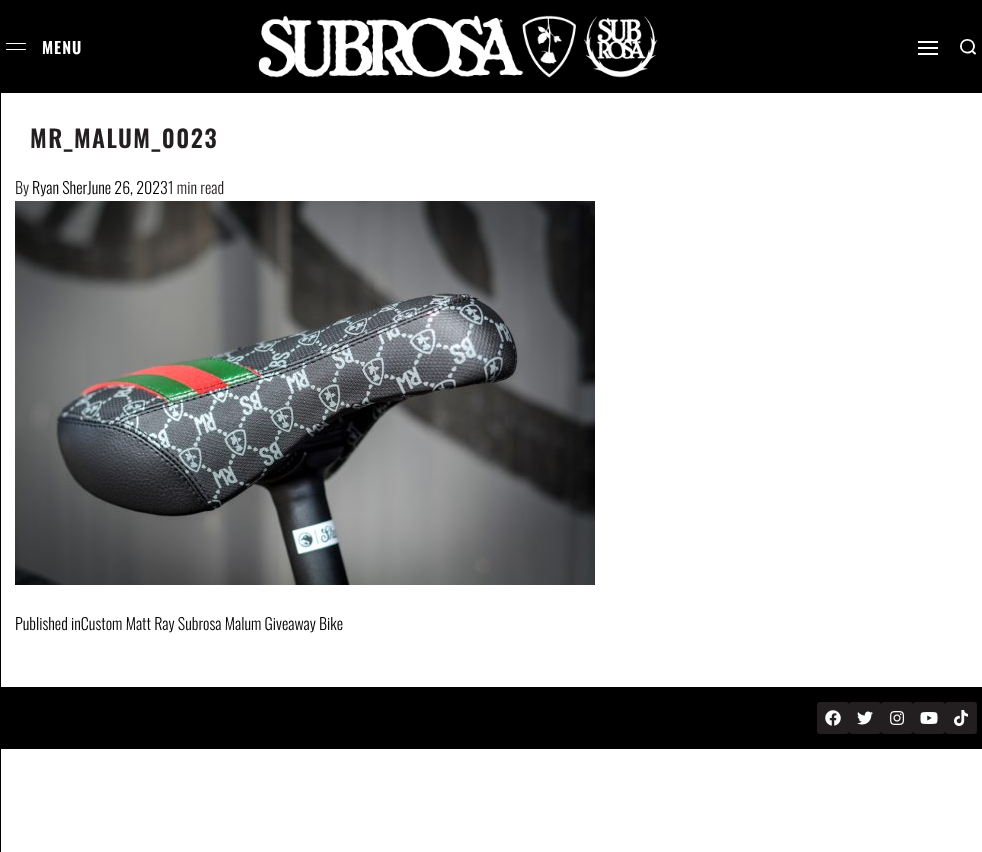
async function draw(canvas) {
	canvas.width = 982;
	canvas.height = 852;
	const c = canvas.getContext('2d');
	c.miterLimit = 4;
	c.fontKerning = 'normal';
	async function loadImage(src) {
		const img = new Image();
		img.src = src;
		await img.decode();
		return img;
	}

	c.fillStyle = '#fff';
	c.fillRect(0, 0, 982, 852);
	c.fillStyle = '#000';
	c.fillRect(1, 0, 981, 93);
	c.fillRect(0, 0, 1, 852);
	c.fillStyle = '#fff';
	c.beginPath();
	c.roundRect(6, 43, 20, 1, 0.5);
	c.fill();
	c.letterSpacing = '1px';
	c.font = '600 16px Oswald';
	c.fillText('MENU', 42, 54);
	c.beginPath();
	c.roundRect(6, 49, 20, 1, 0.5);
	c.fill();
	c.drawImage(await loadImage('img1.png'), 258, 15, 400, 63);
	for (const [x, y, w, h, color] of [
		[918, 41, 20, 2, '#fff'],
		[918, 47, 20, 2, '#fff'],
		[918, 53, 20, 2, '#fff'],
	]) {
		c.fillStyle = color;
		c.fillRect(x, y, w, h);
	}
	c.drawImage(await loadImage('img2.png'), 960, 39, 16, 16);
	c.letterSpacing = '1.5px';
	c.font = '600 24px Oswald';
	c.fillStyle = '#231f20';
	c.fillText('MR_MALUM_0023', 30, 148);
	c.letterSpacing = '0px';
	c.font = '300 16px Oswald';
	c.fillText('By', 15, 194);
	c.fillStyle = '#000';
	c.fillText('Ryan SherJune 26, 2023', 32, 194);
	c.fillStyle = '#231f20';
	c.fillText('1 min read', 168, 194);
	c.drawImage(await loadImage('img3.png'), 15, 201, 580, 384);
	c.fillStyle = '#000';
	c.fillText('Published inCustom Matt Ray Subrosa Malum Giveaway Bike', 15, 630);
	c.fillRect(1, 687, 981, 62);
	c.fillStyle = '#231f20';
	c.beginPath();
	c.roundRect(817, 702, 32, 32, 3);
	c.fill();
	c.drawImage(await loadImage('img4.png'), 825, 710, 16, 16);
	c.beginPath();
	c.roundRect(849, 702, 32, 32, 3);
	c.fill();
	c.drawImage(await loadImage('img5.png'), 857, 711, 16, 14);
	c.beginPath();
	c.roundRect(881, 702, 32, 32, 3);
	c.fill();
	c.drawImage(await loadImage('img6.png'), 890, 711, 15, 14);
	c.beginPath();
	c.roundRect(913, 702, 32, 32, 3);
	c.fill();
	c.drawImage(await loadImage('img7.png'), 920, 712, 18, 12);
	c.beginPath();
	c.roundRect(945, 702, 32, 32, 3);
	c.fill();
	c.drawImage(await loadImage('img8.png'), 954, 710, 14, 16);
}

draw(document.querySelector('canvas'));
